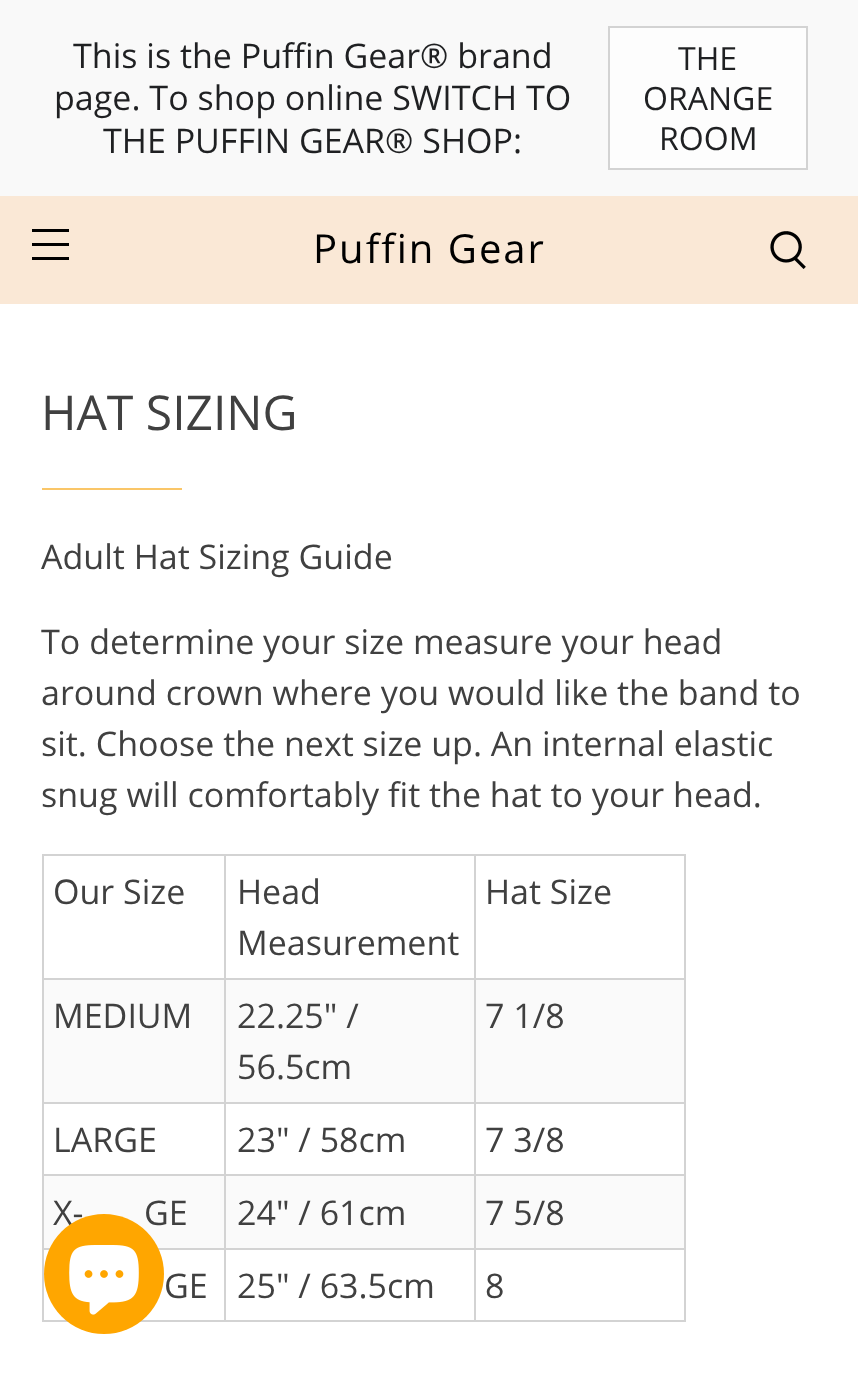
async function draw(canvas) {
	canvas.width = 858;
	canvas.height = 1375;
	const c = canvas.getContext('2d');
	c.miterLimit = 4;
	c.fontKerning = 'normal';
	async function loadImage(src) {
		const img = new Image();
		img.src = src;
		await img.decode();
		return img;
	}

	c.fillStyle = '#fff';
	c.fillRect(0, 0, 858, 1375);
	c.fillStyle = '#f9f9f9';
	c.fillRect(0, 0, 858, 196);
	c.font = '34px Open Sans';
	c.fillStyle = '#1f2022';
	for (const [text, x, y] of [
		['This is the Puffin Gear® brand', 73, 68],
		['page. To shop online SWITCH TO', 54, 110],
		['THE PUFFIN GEAR® SHOP:', 103, 153],
	]) {
		c.fillText(text, x, y);
	}
	c.fillStyle = '#fdfdfd';
	c.beginPath();
	c.rect(609, 27, 198, 142);
	c.fill();
	c.strokeStyle = '#d3d3d3';
	c.lineWidth = 2;
	c.stroke();
	c.font = '32px Open Sans';
	c.fillStyle = '#1f2022';
	for (const [text, x, y] of [
		['THE', 678, 70],
		['ORANGE', 643, 110],
		['ROOM', 659, 150],
	]) {
		c.fillText(text, x, y);
	}
	for (const [x, y, w, h, color] of [
		[0, 196, 858, 108, '#fae8d6'],
		[32, 229, 37, 3, '#000'],
		[32, 243, 37, 3, '#000'],
		[32, 257, 37, 3, '#000'],
	]) {
		c.fillStyle = color;
		c.fillRect(x, y, w, h);
	}
	c.letterSpacing = '2px';
	c.font = '40px Open Sans';
	c.fillText('Puffin Gear', 313, 263);
	c.drawImage(await loadImage('img1.png'), 770, 231, 36, 38);
	c.letterSpacing = '0px';
	c.font = '48px Open Sans';
	c.fillStyle = '#404040';
	c.fillText('HAT SIZING', 41, 430);
	c.fillStyle = '#fac668';
	c.fillRect(42, 488, 140, 2);
	c.font = '34px Open Sans';
	c.fillStyle = '#404040';
	for (const [text, x, y] of [
		['Adult Hat Sizing Guide', 41, 569],
		['To determine your size measure your head', 41, 654],
		['around crown where you would like the band to', 41, 705],
		['sit. Choose the next size up. An internal elastic', 41, 756],
		['snug will comfortably fit the hat to your head.', 41, 807],
	]) {
		c.fillText(text, x, y);
	}
	for (const [x, y, w, h, color] of [
		[474, 854, 212, 2, '#d3d3d3'],
		[474, 978, 212, 2, '#d3d3d3'],
		[44, 980, 640, 122, '#fafafa'],
		[474, 1102, 212, 2, '#d3d3d3'],
		[474, 1174, 212, 2, '#d3d3d3'],
		[44, 1176, 640, 72, '#fafafa'],
		[474, 1248, 212, 2, '#d3d3d3'],
		[684, 1248, 2, 74, '#d3d3d3'],
		[474, 1320, 212, 2, '#d3d3d3'],
		[474, 1248, 2, 74, '#d3d3d3'],
		[224, 1248, 252, 2, '#d3d3d3'],
		[474, 1174, 2, 76, '#d3d3d3'],
		[224, 1174, 252, 2, '#d3d3d3'],
		[474, 1102, 2, 74, '#d3d3d3'],
		[224, 1102, 252, 2, '#d3d3d3'],
		[474, 978, 2, 126, '#d3d3d3'],
		[224, 978, 252, 2, '#d3d3d3'],
		[474, 854, 2, 126, '#d3d3d3'],
		[224, 854, 252, 2, '#d3d3d3'],
		[224, 1320, 252, 2, '#d3d3d3'],
		[224, 1248, 2, 74, '#d3d3d3'],
		[42, 1248, 184, 2, '#d3d3d3'],
		[224, 1174, 2, 76, '#d3d3d3'],
		[42, 1174, 184, 2, '#d3d3d3'],
		[224, 1102, 2, 74, '#d3d3d3'],
		[42, 1102, 184, 2, '#d3d3d3'],
		[224, 978, 2, 126, '#d3d3d3'],
		[42, 978, 184, 2, '#d3d3d3'],
		[224, 854, 2, 126, '#d3d3d3'],
		[42, 854, 184, 2, '#d3d3d3'],
		[42, 1320, 184, 2, '#d3d3d3'],
		[42, 1248, 2, 74, '#d3d3d3'],
		[42, 1174, 2, 76, '#d3d3d3'],
		[42, 1102, 2, 74, '#d3d3d3'],
		[42, 978, 2, 126, '#d3d3d3'],
		[42, 854, 2, 126, '#d3d3d3'],
	]) {
		c.fillStyle = color;
		c.fillRect(x, y, w, h);
	}
	c.fillStyle = '#404040';
	for (const [text, x, y] of [
		['Our Size', 53, 904],
		['Head', 237, 904],
		['Measurement', 237, 955],
	]) {
		c.fillText(text, x, y);
	}
	for (const [x, y, w, h, color] of [
		[684, 1174, 2, 76, '#d3d3d3'],
		[684, 1102, 2, 74, '#d3d3d3'],
		[684, 978, 2, 126, '#d3d3d3'],
		[684, 854, 2, 126, '#d3d3d3'],
	]) {
		c.fillStyle = color;
		c.fillRect(x, y, w, h);
	}
	c.fillStyle = '#404040';
	for (const [text, x, y] of [
		['Hat Size', 485, 904],
		['MEDIUM', 53, 1028],
		['22.25" /', 237, 1028],
		['56.5cm', 237, 1079],
		['7 1/8', 485, 1028],
		['LARGE', 53, 1152],
		['23" / 58cm', 237, 1152],
		['7 3/8', 485, 1152],
		['X-', 53, 1225],
		['GE', 144, 1225],
		['24" / 61cm', 237, 1225],
		['7 5/8', 485, 1225],
		['GE', 164, 1298],
		['25" / 63.5cm', 237, 1298],
		['8', 485, 1298],
	]) {
		c.fillText(text, x, y);
	}
	c.fillStyle = '#ffa600';
	c.beginPath();
	c.arc(104, 1274, 60, 0, 2 * Math.PI);
	c.fill();
	c.drawImage(await loadImage('img2.png'), 69, 1245, 70, 70);
}

draw(document.querySelector('canvas'));
